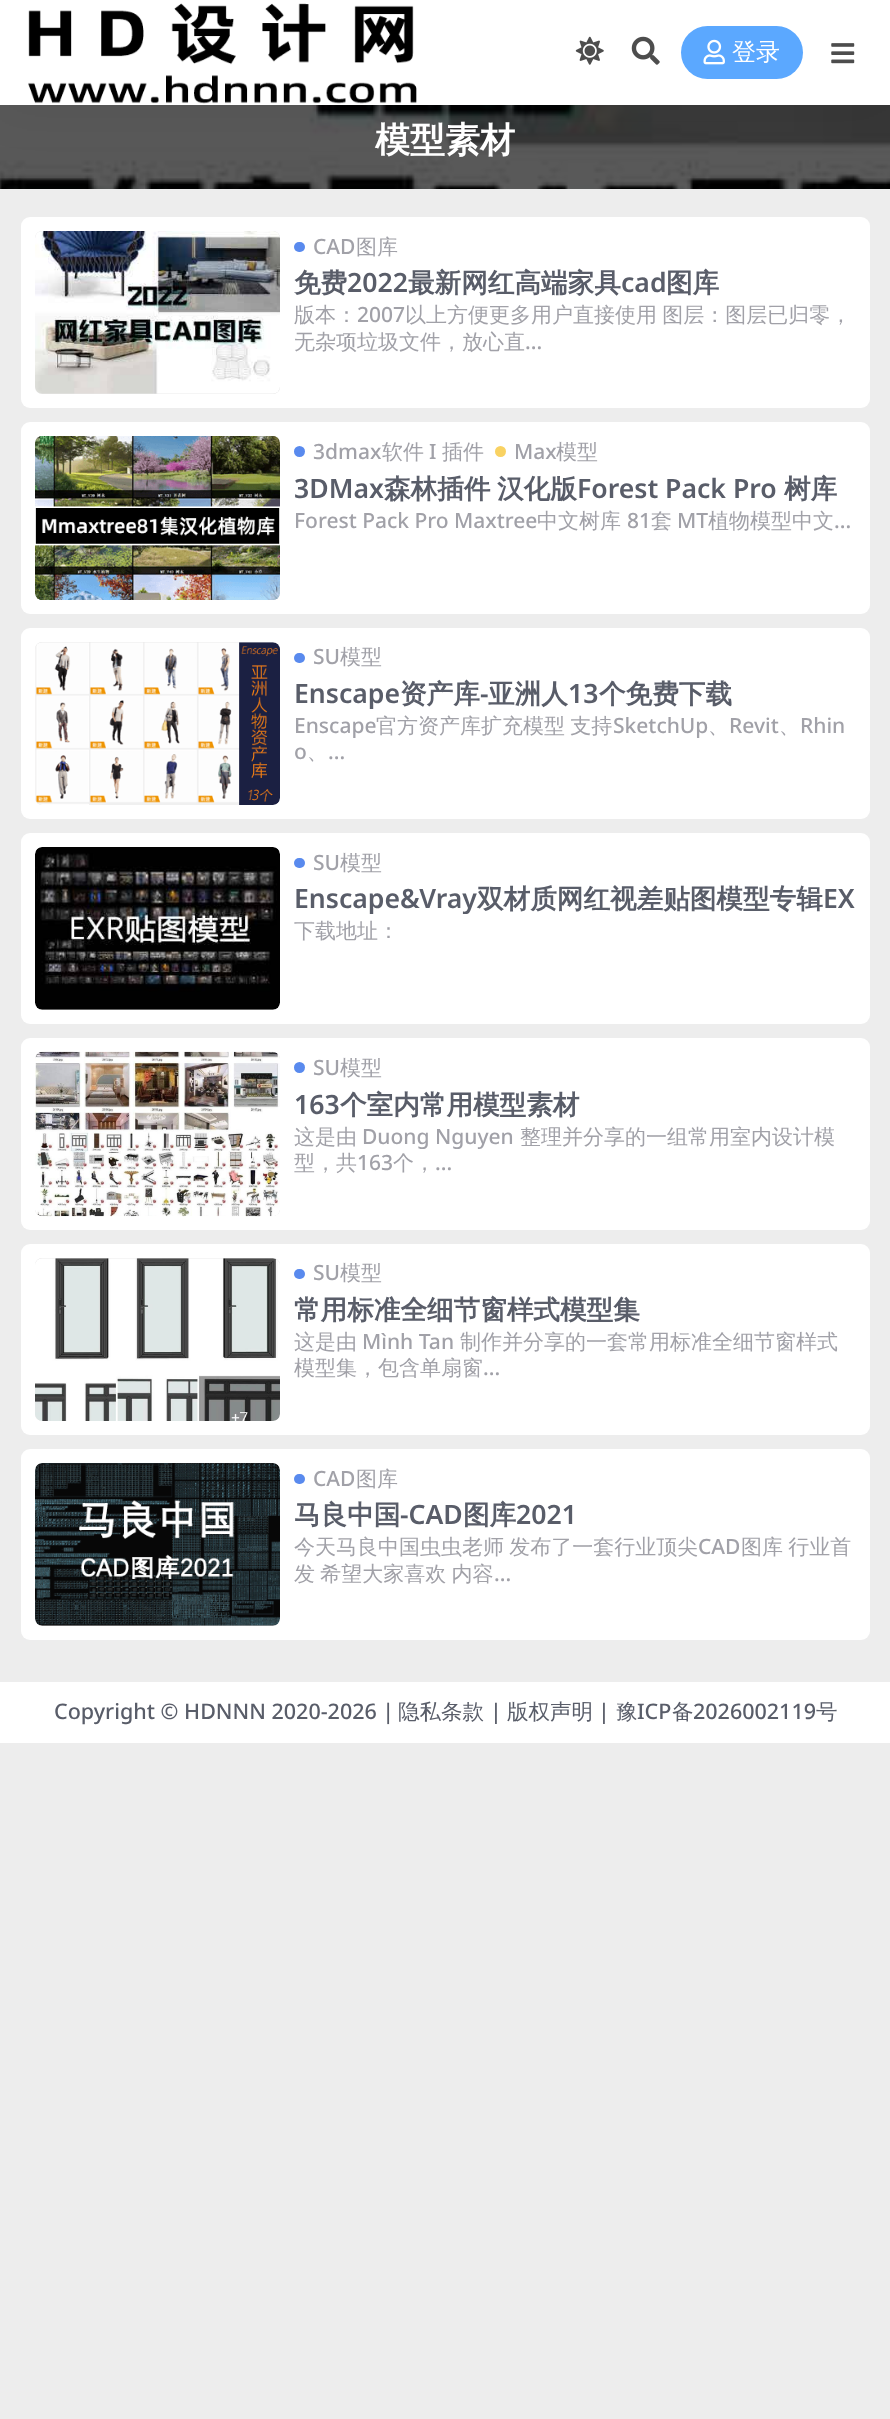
async function draw(canvas) {
	canvas.width = 890;
	canvas.height = 2419;
	const c = canvas.getContext('2d');
	c.miterLimit = 4;
	c.fontKerning = 'normal';
	async function loadImage(src) {
		const img = new Image();
		img.src = src;
		await img.decode();
		return img;
	}

	c.fillStyle = '#ededed';
	c.fillRect(0, 0, 890, 2419);
	c.drawImage(await loadImage('img6.png'), 0, 105, 890, 84);
	c.fillStyle = '#00000012';
	c.filter = 'blur(26px)';
	c.beginPath();
	c.rect(0, 0, 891, 105);
	c.fill();
	c.filter = 'none';
	c.fillStyle = '#fff';
	c.fillRect(0, 0, 890, 105);
	c.drawImage(await loadImage('img1.png'), 28, 3, 389, 101);
	c.drawImage(await loadImage('img2.png'), 575, 36, 29, 29);
	c.drawImage(await loadImage('img3.png'), 631, 36, 29, 29);
	c.fillStyle = '#5ba8ff';
	c.beginPath();
	c.roundRect(681, 26, 122, 53, 26.5);
	c.fill();
	c.drawImage(await loadImage('img4.png'), 703, 39, 22, 26);
	c.font = '500 24px WenQuanYi Zen Hei';
	c.fillStyle = '#fff';
	c.fillText('登录', 732, 60);
	c.drawImage(await loadImage('img5.png'), 831, 43, 24, 21);
	c.font = 'bold 35px WenQuanYi Zen Hei';
	c.fillText('模型素材', 375, 152);
	c.beginPath();
	c.roundRect(21, 217, 849, 191, 9);
	c.fill();
	c.fillStyle = '#e7e7e7';
	c.beginPath();
	c.roundRect(35, 231, 245, 163, 7);
	c.fill();
	c.drawImage(await loadImage('img7.png'), 35, 231, 245, 163);
	c.fillStyle = '#598aee';
	c.beginPath();
	c.roundRect(294, 242, 11, 10, 5);
	c.fill();
	c.font = '500 21px Noto Sans';
	c.fillStyle = '#a1a1a8';
	c.fillText('CAD', 313, 254);
	c.font = '500 21px WenQuanYi Zen Hei';
	c.fillText('图库', 356, 254);
	c.font = 'bold 26.6px WenQuanYi Zen Hei';
	c.fillStyle = '#595d69';
	c.fillText('免费', 294, 292);
	c.font = '600 26.6px Noto Sans';
	c.fillText('2022', 347, 292);
	c.font = 'bold 26.6px WenQuanYi Zen Hei';
	c.fillText('最新网红高端家具', 408, 292);
	c.font = '600 26.6px Noto Sans';
	c.fillText('cad', 621, 292);
	c.font = 'bold 26.6px WenQuanYi Zen Hei';
	c.fillText('图库', 666, 292);
	c.font = '500 21px WenQuanYi Zen Hei';
	c.fillStyle = '#a1a1a8';
	c.fillText('版本：', 294, 322);
	c.font = '500 21px Noto Sans';
	c.fillText('2007', 357, 322);
	c.wordSpacing = '-1px';
	c.font = '500 21px WenQuanYi Zen Hei';
	c.fillText('以上方便更多用户直接使用 图层：图层已归零，', 405, 322);
	c.wordSpacing = '0px';
	c.fillText('无杂项垃圾文件，放心直', 294, 349);
	c.font = '500 21px Noto Sans';
	c.fillText('...', 525, 349);
	c.fillStyle = '#fff';
	c.beginPath();
	c.roundRect(21, 422, 849, 192, 9);
	c.fill();
	c.fillStyle = '#e7e7e7';
	c.beginPath();
	c.roundRect(35, 436, 245, 164, 7);
	c.fill();
	c.drawImage(await loadImage('img8.png'), 35, 436, 245, 164);
	c.fillStyle = '#598aee';
	c.beginPath();
	c.arc(299.5, 451.5, 5.5, 0, 2 * Math.PI);
	c.fill();
	c.fillStyle = '#a1a1a8';
	c.fillText('3dmax', 313, 459);
	c.font = '500 21px WenQuanYi Zen Hei';
	c.fillText('软件', 382, 459);
	c.font = '500 21px Noto Sans';
	c.fillText('I', 429, 459);
	c.font = '500 21px WenQuanYi Zen Hei';
	c.fillText('插件', 442, 459);
	c.fillStyle = '#f9d262';
	c.beginPath();
	c.arc(500.5, 451.5, 5.5, 0, 2 * Math.PI);
	c.fill();
	c.font = '500 21px Noto Sans';
	c.fillStyle = '#a1a1a8';
	c.fillText('Max', 514, 459);
	c.font = '500 21px WenQuanYi Zen Hei';
	c.fillText('模型', 556, 459);
	c.font = '600 26.6px Noto Sans';
	c.fillStyle = '#595d69';
	c.fillText('3DMax', 294, 498);
	c.font = 'bold 26.6px WenQuanYi Zen Hei';
	c.fillText('森林插件', 384, 498);
	c.fillText('汉化版', 497, 498);
	c.font = '600 26.6px Noto Sans';
	c.fillText('Forest Pack Pro', 577, 498);
	c.font = 'bold 26.6px WenQuanYi Zen Hei';
	c.fillText('树库', 784, 498);
	c.font = '500 21px Noto Sans';
	c.fillStyle = '#a1a1a8';
	c.fillText('Forest Pack Pro Maxtree', 294, 528);
	c.font = '500 21px WenQuanYi Zen Hei';
	c.fillText('中文树库', 537, 528);
	c.font = '500 21px Noto Sans';
	c.fillText('81', 627, 528);
	c.font = '500 21px WenQuanYi Zen Hei';
	c.fillText('套', 651, 528);
	c.font = '500 21px Noto Sans';
	c.fillText('MT', 677, 528);
	c.font = '500 21px WenQuanYi Zen Hei';
	c.fillText('植物模型中文', 708, 528);
	c.font = '500 21px Noto Sans';
	c.fillText('...', 834, 528);
	c.fillStyle = '#fff';
	c.beginPath();
	c.roundRect(21, 628, 849, 191, 9);
	c.fill();
	c.fillStyle = '#e7e7e7';
	c.beginPath();
	c.roundRect(35, 642, 245, 163, 7);
	c.fill();
	c.drawImage(await loadImage('img9.png'), 35, 642, 245, 163);
	c.fillStyle = '#598aee';
	c.beginPath();
	c.roundRect(294, 653, 11, 10, 5);
	c.fill();
	c.fillStyle = '#a1a1a8';
	c.fillText('SU', 313, 664);
	c.font = '500 21px WenQuanYi Zen Hei';
	c.fillText('模型', 340, 664);
	c.save();
	c.beginPath();
	c.rect(294, 677, 562, 32);
	c.clip();
	c.font = '600 26.6px Noto Sans';
	c.fillStyle = '#595d69';
	c.fillText('Enscape', 294, 703);
	c.restore();
	c.font = 'bold 26.6px WenQuanYi Zen Hei';
	c.fillStyle = '#595d69';
	c.fillText('资产库', 400, 703);
	c.font = '600 26.6px Noto Sans';
	c.fillText('-', 480, 703);
	c.font = 'bold 26.6px WenQuanYi Zen Hei';
	c.fillText('亚洲人', 488, 703);
	c.font = '600 26.6px Noto Sans';
	c.fillText('13', 568, 703);
	c.font = 'bold 26.6px WenQuanYi Zen Hei';
	c.fillText('个免费下载', 599, 703);
	c.font = '500 21px Noto Sans';
	c.fillStyle = '#a1a1a8';
	c.fillText('Enscape', 294, 733);
	c.wordSpacing = '-1px';
	c.font = '500 21px WenQuanYi Zen Hei';
	c.fillText('官方资产库扩充模型 支持', 376, 733);
	c.wordSpacing = '0px';
	c.font = '500 21px Noto Sans';
	c.fillText('SketchUp', 613, 733);
	c.font = '500 21px WenQuanYi Zen Hei';
	c.fillText('、', 708, 733);
	c.font = '500 21px Noto Sans';
	c.fillText('Revit', 729, 733);
	c.font = '500 21px WenQuanYi Zen Hei';
	c.fillText('、', 779, 733);
	c.font = '500 21px Noto Sans';
	c.fillText('Rhin', 800, 733);
	c.fillText('o', 294, 759);
	c.font = '500 21px WenQuanYi Zen Hei';
	c.fillText('、', 307, 759);
	c.font = '500 21px Noto Sans';
	c.fillText('...', 328, 759);
	c.fillStyle = '#fff';
	c.beginPath();
	c.roundRect(21, 833, 849, 191, 9);
	c.fill();
	c.fillStyle = '#e7e7e7';
	c.beginPath();
	c.roundRect(35, 847, 245, 163, 7);
	c.fill();
	c.drawImage(await loadImage('img10.png'), 35, 847, 245, 163);
	c.fillStyle = '#598aee';
	c.beginPath();
	c.roundRect(294, 858, 11, 10, 5);
	c.fill();
	c.fillStyle = '#a1a1a8';
	c.fillText('SU', 313, 870);
	c.font = '500 21px WenQuanYi Zen Hei';
	c.fillText('模型', 340, 870);
	c.save();
	c.beginPath();
	c.rect(294, 882, 562, 32);
	c.clip();
	c.font = '600 26.6px Noto Sans';
	c.fillStyle = '#595d69';
	c.fillText('Enscape&Vray', 294, 908);
	c.restore();
	c.font = 'bold 26.6px WenQuanYi Zen Hei';
	c.fillStyle = '#595d69';
	c.fillText('双材质网红视差贴图模型专辑', 477, 908);
	c.font = '600 26.6px Noto Sans';
	c.fillText('EX', 823, 908);
	c.font = '500 21px WenQuanYi Zen Hei';
	c.fillStyle = '#a1a1a8';
	c.fillText('下载地址：', 294, 938);
	c.fillStyle = '#fff';
	c.beginPath();
	c.roundRect(21, 1038, 849, 192, 9);
	c.fill();
	c.fillStyle = '#e7e7e7';
	c.beginPath();
	c.roundRect(35, 1052, 245, 164, 7);
	c.fill();
	c.drawImage(await loadImage('img11.png'), 35, 1051, 245, 166);
	c.fillStyle = '#598aee';
	c.beginPath();
	c.arc(299.5, 1067.5, 5.5, 0, 2 * Math.PI);
	c.fill();
	c.font = '500 21px Noto Sans';
	c.fillStyle = '#a1a1a8';
	c.fillText('SU', 313, 1075);
	c.font = '500 21px WenQuanYi Zen Hei';
	c.fillText('模型', 340, 1075);
	c.font = '600 26.6px Noto Sans';
	c.fillStyle = '#595d69';
	c.fillText('163', 294, 1114);
	c.font = 'bold 26.6px WenQuanYi Zen Hei';
	c.fillText('个室内常用模型素材', 340, 1114);
	c.font = '500 21px WenQuanYi Zen Hei';
	c.fillStyle = '#a1a1a8';
	c.fillText('这是由', 294, 1144);
	c.font = '500 21px Noto Sans';
	c.fillText('Duong Nguyen', 362, 1144);
	c.font = '500 21px WenQuanYi Zen Hei';
	c.fillText('整理并分享的一组常用室内设计模', 520, 1144);
	c.fillText('型，共', 294, 1170);
	c.font = '500 21px Noto Sans';
	c.fillText('163', 357, 1170);
	c.font = '500 21px WenQuanYi Zen Hei';
	c.fillText('个，', 393, 1170);
	c.font = '500 21px Noto Sans';
	c.fillText('...', 435, 1170);
	c.fillStyle = '#fff';
	c.beginPath();
	c.roundRect(21, 1244, 849, 191, 9);
	c.fill();
	c.fillStyle = '#e7e7e7';
	c.beginPath();
	c.roundRect(35, 1258, 245, 163, 7);
	c.fill();
	c.drawImage(await loadImage('img12.png'), 35, 1258, 245, 163);
	c.fillStyle = '#598aee';
	c.beginPath();
	c.roundRect(294, 1269, 11, 10, 5);
	c.fill();
	c.fillStyle = '#a1a1a8';
	c.fillText('SU', 313, 1280);
	c.font = '500 21px WenQuanYi Zen Hei';
	c.fillText('模型', 340, 1280);
	c.font = 'bold 26.6px WenQuanYi Zen Hei';
	c.fillStyle = '#595d69';
	c.fillText('常用标准全细节窗样式模型集', 294, 1319);
	c.font = '500 21px WenQuanYi Zen Hei';
	c.fillStyle = '#a1a1a8';
	c.fillText('这是由', 294, 1349);
	c.font = '500 21px Noto Sans';
	c.fillText('Mình Tan', 362, 1349);
	c.font = '500 21px WenQuanYi Zen Hei';
	c.fillText('制作并分享的一套常用标准全细节窗样式', 460, 1349);
	c.fillText('模型集，包含单扇窗', 294, 1375);
	c.font = '500 21px Noto Sans';
	c.fillText('...', 483, 1375);
	c.fillStyle = '#fff';
	c.beginPath();
	c.roundRect(21, 1449, 849, 191, 9);
	c.fill();
	c.fillStyle = '#e7e7e7';
	c.beginPath();
	c.roundRect(35, 1463, 245, 163, 7);
	c.fill();
	c.drawImage(await loadImage('img13.png'), 35, 1463, 245, 163);
	c.fillStyle = '#598aee';
	c.beginPath();
	c.roundRect(294, 1474, 11, 10, 5);
	c.fill();
	c.fillStyle = '#a1a1a8';
	c.fillText('CAD', 313, 1486);
	c.font = '500 21px WenQuanYi Zen Hei';
	c.fillText('图库', 356, 1486);
	c.font = 'bold 26.6px WenQuanYi Zen Hei';
	c.fillStyle = '#595d69';
	c.fillText('马良中国', 294, 1524);
	c.font = '600 26.6px Noto Sans';
	c.fillText('-CAD', 400, 1524);
	c.font = 'bold 26.6px WenQuanYi Zen Hei';
	c.fillText('图库', 463, 1524);
	c.font = '600 26.6px Noto Sans';
	c.fillText('2021', 516, 1524);
	c.wordSpacing = '-1px';
	c.font = '500 21px WenQuanYi Zen Hei';
	c.fillStyle = '#a1a1a8';
	c.fillText('今天马良中国虫虫老师 发布了一套行业顶尖', 294, 1554);
	c.wordSpacing = '0px';
	c.font = '500 21px Noto Sans';
	c.fillText('CAD', 698, 1554);
	c.wordSpacing = '-1px';
	c.font = '500 21px WenQuanYi Zen Hei';
	c.fillText('图库 行业首', 741, 1554);
	c.fillText('发 希望大家喜欢 内容', 294, 1581);
	c.wordSpacing = '0px';
	c.font = '500 21px Noto Sans';
	c.fillText('...', 494, 1581);
	c.fillStyle = '#fff';
	c.fillRect(0, 1682, 890, 61);
	c.font = '500 21.5px Noto Sans';
	c.fillStyle = '#595d69';
	c.fillText('Copyright © HDNNN 2020-2026 |', 54, 1719);
	c.font = '500 21.5px WenQuanYi Zen Hei';
	c.fillText('隐私条款', 398, 1719);
	c.font = '500 21.5px Noto Sans';
	c.fillText('|', 490, 1719);
	c.font = '500 21.5px WenQuanYi Zen Hei';
	c.fillText('版权声明', 507, 1719);
	c.font = '500 21.5px Noto Sans';
	c.fillText('|', 598, 1719);
	c.font = '500 21.5px WenQuanYi Zen Hei';
	c.fillText('豫', 616, 1719);
	c.font = '500 21.5px Noto Sans';
	c.fillText('ICP', 637, 1719);
	c.font = '500 21.5px WenQuanYi Zen Hei';
	c.fillText('备', 672, 1719);
	c.font = '500 21.5px Noto Sans';
	c.fillText('2026002119', 693, 1719);
	c.font = '500 21.5px WenQuanYi Zen Hei';
	c.fillText('号', 816, 1719);
}

draw(document.querySelector('canvas'));
